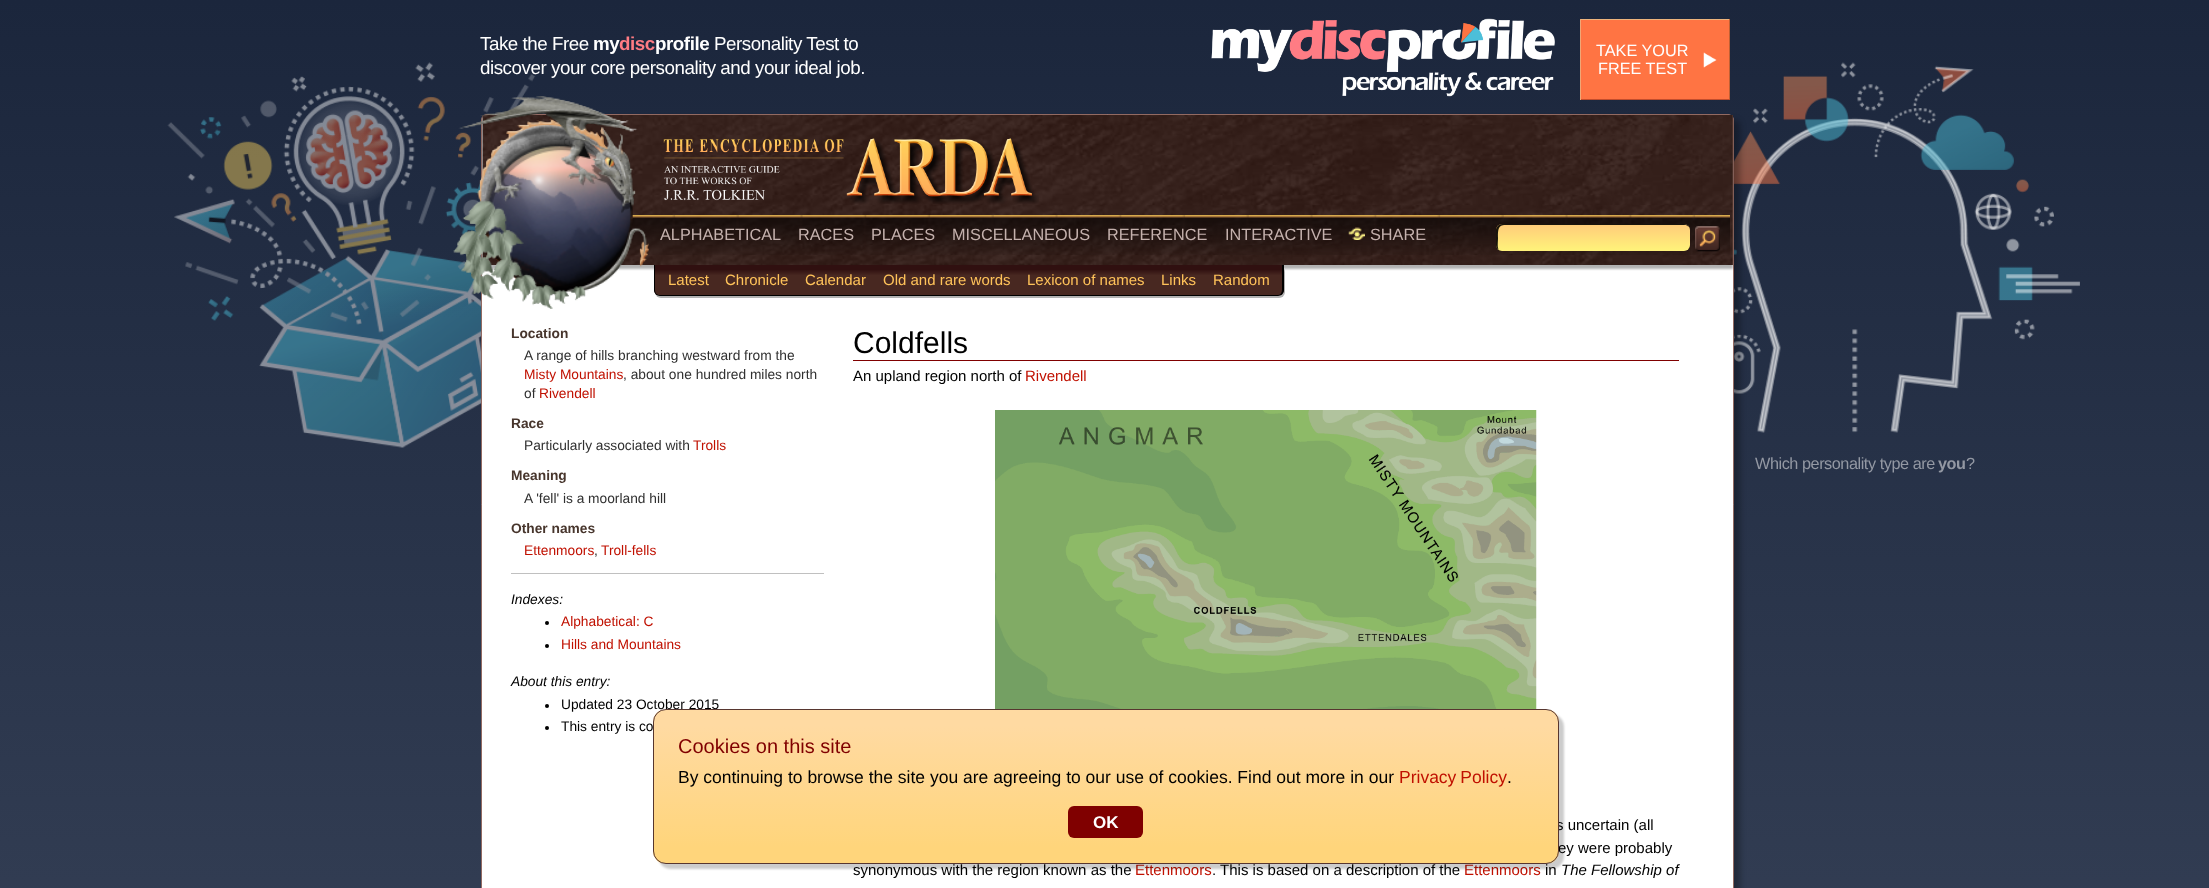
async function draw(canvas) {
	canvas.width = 2209;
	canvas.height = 888;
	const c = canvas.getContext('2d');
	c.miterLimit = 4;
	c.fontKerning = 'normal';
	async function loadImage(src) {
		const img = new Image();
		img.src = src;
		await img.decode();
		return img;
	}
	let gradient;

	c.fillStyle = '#fff';
	c.fillRect(0, 0, 2209, 888);
	gradient = c.createLinearGradient(1105, 0, 1105, 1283);
	gradient.addColorStop(0, '#1b263c');
	gradient.addColorStop(1, '#3b465c');
	c.fillStyle = gradient;
	c.fillRect(0, 0, 2209, 888);
	c.drawImage(await loadImage('img1.png'), 167, 62, 369, 386);
	c.letterSpacing = '-0.45px';
	c.font = '18.75px Liberation Sans';
	c.fillStyle = '#fff';
	c.fillText('Take the Free', 480, 50);
	c.font = 'bold 18.75px Liberation Sans';
	c.fillText('my', 593, 50);
	c.fillStyle = '#ff7c84';
	c.fillText('disc', 619, 50);
	c.fillStyle = '#fff';
	c.fillText('profile', 655, 50);
	c.font = '18.75px Liberation Sans';
	c.fillText('Personality Test to', 714, 50);
	c.fillText('discover your core personality and your ideal job.', 480, 74);
	c.drawImage(await loadImage('img2.png'), 1211, 18, 344, 79);
	c.fillStyle = '#ff7443';
	c.fillRect(1581, 20, 148, 79);
	c.drawImage(await loadImage('img3.png'), 1703, 52, 14, 16);
	for (const [x, y, w, h, color] of [
		[1580, 19, 150, 1, '#edb47c'],
		[1729, 19, 1, 81, '#c05f32'],
		[1580, 99, 150, 1, '#c34d2c'],
		[1580, 19, 1, 81, '#f0a776'],
	]) {
		c.fillStyle = color;
		c.fillRect(x, y, w, h);
	}
	c.letterSpacing = '0px';
	c.font = '16.25px Liberation Sans';
	c.fillStyle = '#fff';
	c.fillText('TAKE YOUR', 1596, 56);
	c.fillText('FREE TEST', 1598, 74);
	c.drawImage(await loadImage('img4.png'), 1734, 62, 346, 371);
	c.fillStyle = '#0000004d';
	c.filter = 'blur(3px)';
	c.beginPath();
	c.roundRect(488, 120, 1252, 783, 6);
	c.fill();
	c.filter = 'none';
	c.fillStyle = '#fff';
	c.beginPath();
	c.roundRect(481.5, 114.5, 1252, 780, 5.5);
	c.fill();
	c.strokeStyle = '#926a62';
	c.stroke();
	c.fillStyle = '#0000004d';
	c.filter = 'blur(1px)';
	c.beginPath();
	c.rect(483, 119, 1250, 150);
	c.fill();
	c.filter = 'none';
	c.fillStyle = '#604238';
	c.fillRect(1732, 115, 1, 150);
	c.drawImage(await loadImage('img5.png'), 482, 115, 1251, 150);
	c.drawImage(await loadImage('img9.png'), 482, 215, 1248, 40);
	c.drawImage(await loadImage('img6.png'), 453, 96, 196, 213);
	c.drawImage(await loadImage('img7.png'), 453, 96, 196, 213);
	c.drawImage(await loadImage('img8.png'), 663, 138, 376, 66);
	c.fillStyle = '#c4b1ad';
	for (const [text, x, y] of [
		['ALPHABETICAL', 660, 240],
		['RACES', 798, 240],
		['PLACES', 871, 240],
		['MISCELLANEOUS', 952, 240],
		['REFERENCE', 1107, 240],
		['INTERACTIVE', 1225, 240],
	]) {
		c.fillText(text, x, y);
	}
	c.drawImage(await loadImage('img10.png'), 1348, 227, 17, 13);
	c.fillText('SHARE', 1370, 240);
	gradient = c.createLinearGradient(1496, 224, 1496, 251);
	gradient.addColorStop(0.05, '#ffcd7a');
	gradient.addColorStop(0.95, '#fff17a');
	c.fillStyle = gradient;
	c.beginPath();
	c.roundRect(1496, 224, 194, 27, 6);
	c.fill();
	c.fillStyle = '#000000e6';
	c.beginPath();
	c.moveTo(1504, 225);
	c.lineTo(1686, 225);
	c.lineTo(1689, 227);
	c.bezierCurveTo(1688, 225, 1686, 224, 1684, 224);
	c.lineTo(1502, 224);
	c.bezierCurveTo(1499, 224, 1496, 227, 1496, 230);
	c.lineTo(1496, 245);
	c.bezierCurveTo(1496, 247, 1497, 249, 1499, 250);
	c.bezierCurveTo(1497, 248, 1498, 242, 1498, 238);
	c.bezierCurveTo(1498, 234, 1497, 225, 1504, 225);
	c.closePath();
	c.fill();
	c.drawImage(await loadImage('img11.png'), 1695, 226, 25, 26);
	c.fillStyle = '#0000004d';
	c.filter = 'blur(0.5px)';
	c.beginPath();
	c.roundRect(655, 266, 630, 32, 6);
	c.fill();
	c.filter = 'none';
	c.save();
	c.beginPath();
	c.roundRect(654, 265, 630, 31, [0, 0, 6, 6]);
	c.clip();
	gradient = c.createLinearGradient(655, 265, 655, 295);
	gradient.addColorStop(0.15, '#301010');
	gradient.addColorStop(0.35, '#482821');
	c.fillStyle = gradient;
	c.fillRect(654, 265, 630, 30);
	c.restore();
	c.fillStyle = '#000';
	c.beginPath();
	c.moveTo(654, 265);
	c.lineTo(1284, 265);
	c.lineTo(1284, 290);
	c.bezierCurveTo(1284, 293, 1281, 296, 1278, 296);
	c.lineTo(660, 296);
	c.bezierCurveTo(657, 296, 654, 293, 654, 290);
	c.closePath();
	c.moveTo(655, 265);
	c.lineTo(1282, 265);
	c.lineTo(1282, 290);
	c.bezierCurveTo(1282, 293, 1280, 295, 1278, 295);
	c.lineTo(660, 295);
	c.bezierCurveTo(657, 295, 655, 293, 655, 290);
	c.closePath();
	c.fill('evenodd');
	c.font = '15px Liberation Sans';
	c.fillStyle = '#ffc35a';
	for (const [text, x, y] of [
		['Latest', 668, 285],
		['Chronicle', 725, 285],
		['Calendar', 805, 285],
		['Old and rare words', 883, 285],
		['Lexicon of names', 1027, 285],
		['Links', 1161, 285],
		['Random', 1213, 285],
	]) {
		c.fillText(text, x, y);
	}
	c.font = 'bold 13.75px Liberation Sans';
	c.fillStyle = '#47352c';
	c.fillText('Location', 511, 338);
	c.font = '13.75px Liberation Sans';
	c.fillStyle = '#303030';
	c.fillText('A range of hills branching westward from the', 524, 360);
	c.fillStyle = '#c01000';
	c.fillText('Misty Mountains', 524, 379);
	c.fillStyle = '#303030';
	c.fillText(', about one hundred miles north', 623, 379);
	c.fillText('of', 524, 398);
	c.fillStyle = '#c01000';
	c.fillText('Rivendell', 539, 398);
	c.font = 'bold 13.75px Liberation Sans';
	c.fillStyle = '#47352c';
	c.fillText('Race', 511, 428);
	c.font = '13.75px Liberation Sans';
	c.fillStyle = '#303030';
	c.fillText('Particularly associated with', 524, 450);
	c.fillStyle = '#c01000';
	c.fillText('Trolls', 693, 450);
	c.font = 'bold 13.75px Liberation Sans';
	c.fillStyle = '#47352c';
	c.fillText('Meaning', 511, 480);
	c.font = '13.75px Liberation Sans';
	c.fillStyle = '#303030';
	c.fillText('A \'fell\' is a moorland hill', 524, 503);
	c.font = 'bold 13.75px Liberation Sans';
	c.fillStyle = '#47352c';
	c.fillText('Other names', 511, 533);
	c.font = '13.75px Liberation Sans';
	c.fillStyle = '#c01000';
	c.fillText('Ettenmoors', 524, 555);
	c.fillStyle = '#303030';
	c.fillText(',', 594, 555);
	c.fillStyle = '#c01000';
	c.fillText('Troll-fells', 601, 555);
	c.fillStyle = '#c0c0c0';
	c.fillRect(511, 573, 313, 1);
	c.font = 'italic 13.75px Liberation Sans';
	c.fillStyle = '#000';
	c.fillText('Indexes:', 511, 604);
	c.beginPath();
	c.arc(547, 623, 2, 0, 2 * Math.PI);
	c.fill();
	c.font = '13.75px Liberation Sans';
	c.fillStyle = '#c01000';
	c.fillText('Alphabetical: C', 561, 626);
	c.fillStyle = '#000';
	c.beginPath();
	c.arc(547, 646, 2, 0, 2 * Math.PI);
	c.fill();
	c.fillStyle = '#c01000';
	c.fillText('Hills and Mountains', 561, 649);
	c.font = 'italic 13.75px Liberation Sans';
	c.fillStyle = '#000';
	c.fillText('About this entry:', 511, 686);
	c.beginPath();
	c.arc(547, 706, 2, 0, 2 * Math.PI);
	c.fill();
	c.font = '13.75px Liberation Sans';
	c.fillText('Updated 23 October 2015', 561, 709);
	c.beginPath();
	c.arc(547, 728, 2, 0, 2 * Math.PI);
	c.fill();
	c.fillText('This entry is co', 561, 731);
	c.fillStyle = '#800000';
	c.fillRect(853, 360, 826, 1);
	c.font = '30px Liberation Sans';
	c.fillStyle = '#000';
	c.fillText('Coldfells', 853, 353);
	c.font = '15px Liberation Sans';
	c.fillText('An upland region north of', 853, 381);
	c.fillStyle = '#c01000';
	c.fillText('Rivendell', 1025, 381);
	c.drawImage(await loadImage('img12.png'), 995, 410, 542, 299);
	c.fillStyle = '#000';
	for (const [text, x, y] of [
		['s uncertain (all', 1556, 830],
		['ey were probably', 1558, 853],
		['synonymous with the region known as the', 853, 875],
	]) {
		c.fillText(text, x, y);
	}
	c.fillStyle = '#c01000';
	c.fillText('Ettenmoors', 1135, 875);
	c.fillStyle = '#000';
	c.fillText('. This is based on a description of the', 1212, 875);
	c.fillStyle = '#c01000';
	c.fillText('Ettenmoors', 1464, 875);
	c.fillStyle = '#000';
	c.fillText('in', 1545, 875);
	c.font = 'italic 15px Liberation Sans';
	c.fillText('The Fellowship of', 1561, 875);
	c.letterSpacing = '-0.45px';
	c.font = '16.25px Liberation Sans';
	c.fillStyle = '#9398a3';
	c.fillText('Which personality type are', 1755, 469);
	c.font = 'bold 16.25px Liberation Sans';
	c.fillText('you', 1938, 469);
	c.font = '16.25px Liberation Sans';
	c.fillText('?', 1966, 469);
	c.fillStyle = '#00000033';
	c.filter = 'blur(1px)';
	c.beginPath();
	c.roundRect(658, 714, 906, 155, 13);
	c.fill();
	c.filter = 'none';
	c.save();
	c.beginPath();
	c.roundRect(653, 709, 906, 155, 13);
	c.clip();
	gradient = c.createLinearGradient(654, 710, 654, 863);
	gradient.addColorStop(0.1, '#ffdaa2');
	gradient.addColorStop(0.9, '#ffd57b');
	c.fillStyle = gradient;
	c.fillRect(653, 710, 906, 153);
	c.restore();
	c.beginPath();
	c.roundRect(653.5, 709.5, 905, 154, 12.5);
	c.strokeStyle = '#57362f';
	c.stroke();
	c.letterSpacing = '0px';
	c.font = '20px Liberation Sans';
	c.fillStyle = '#800000';
	c.fillText('Cookies on this site', 678, 753);
	c.font = '17.5px Liberation Sans';
	c.fillStyle = '#000';
	c.fillText('By continuing to browse the site you are agreeing to our use of cookies. Find out more in our', 678, 783);
	c.wordSpacing = '-1px';
	c.fillStyle = '#c01000';
	c.fillText('Privacy Policy', 1399, 783);
	c.wordSpacing = '0px';
	c.fillStyle = '#000';
	c.fillText('.', 1507, 783);
	c.fillStyle = '#800000';
	c.beginPath();
	c.roundRect(1068, 806, 75, 32, 6);
	c.fill();
	c.font = 'bold 17px Liberation Sans';
	c.fillStyle = '#fff';
	c.fillText('OK', 1093, 828);
}

draw(document.querySelector('canvas'));
